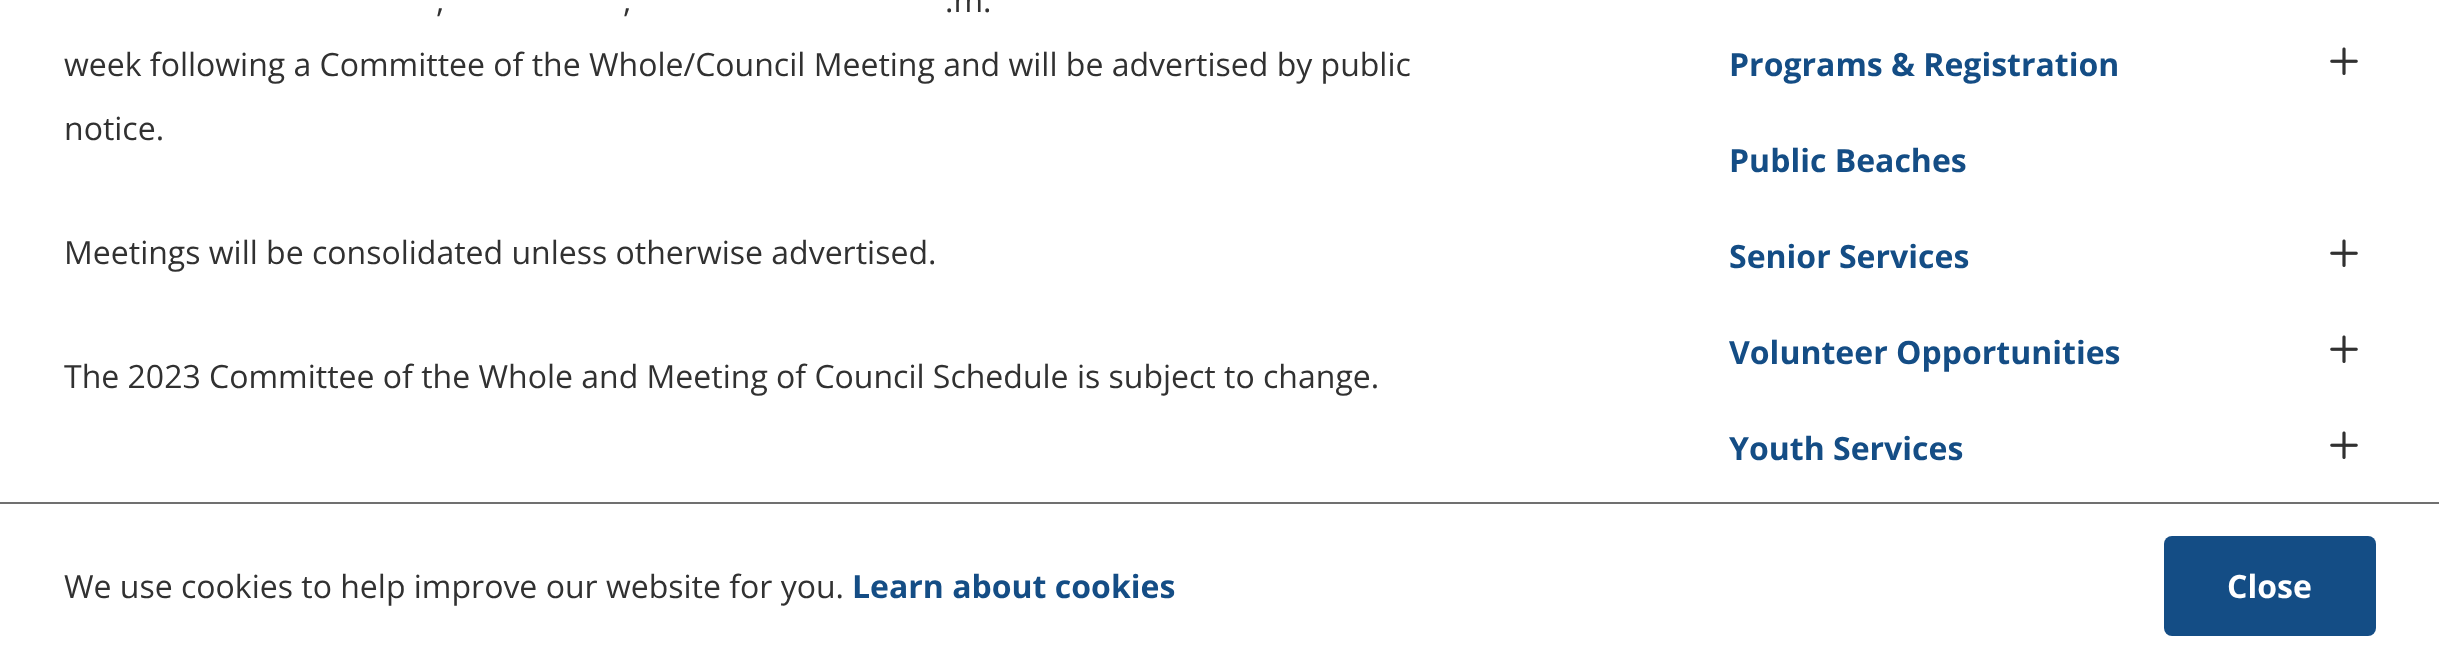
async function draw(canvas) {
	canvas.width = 2439;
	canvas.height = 668;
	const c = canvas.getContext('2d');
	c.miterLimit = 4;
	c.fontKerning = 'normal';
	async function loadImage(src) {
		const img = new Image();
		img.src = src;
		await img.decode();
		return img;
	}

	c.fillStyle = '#fff';
	c.fillRect(0, 0, 2439, 668);
	c.font = '32px Open Sans';
	c.fillStyle = '#313131';
	for (const [text, x, y] of [
		[',', 436, 12],
		[',', 623, 12],
		['.m.', 945, 12],
		['week following a Committee of the Whole/Council Meeting and will be advertised by public', 64, 76],
		['notice.', 64, 140],
		['Meetings will be consolidated unless otherwise advertised.', 64, 264],
		['The 2023 Committee of the Whole and Meeting of Council Schedule is subject to change.', 64, 388],
	]) {
		c.fillText(text, x, y);
	}
	c.font = 'bold 32px Open Sans';
	c.fillStyle = '#144d85';
	c.fillText('Programs & Registration', 1729, 76);
	c.drawImage(await loadImage('img1.png'), 2330, 47, 28, 28);
	c.fillText('Public Beaches', 1729, 172);
	c.fillText('Senior Services', 1729, 268);
	c.drawImage(await loadImage('img1.png'), 2330, 239, 28, 28);
	c.fillText('Volunteer Opportunities', 1729, 364);
	c.drawImage(await loadImage('img1.png'), 2330, 335, 28, 28);
	c.fillText('Youth Services', 1729, 460);
	c.drawImage(await loadImage('img1.png'), 2330, 431, 28, 28);
	c.fillStyle = '#707070';
	c.fillRect(0, 502, 2439, 2);
	c.font = '32px Open Sans';
	c.fillStyle = '#313131';
	c.fillText('We use cookies to help improve our website for you.', 64, 598);
	c.font = 'bold 32px Open Sans';
	c.fillStyle = '#144d85';
	c.fillText('Learn about cookies', 852, 598);
	c.beginPath();
	c.roundRect(2164, 536, 212, 100, 8);
	c.fill();
	c.fillStyle = '#fff';
	c.fillText('Close', 2227, 598);
}

draw(document.querySelector('canvas'));
